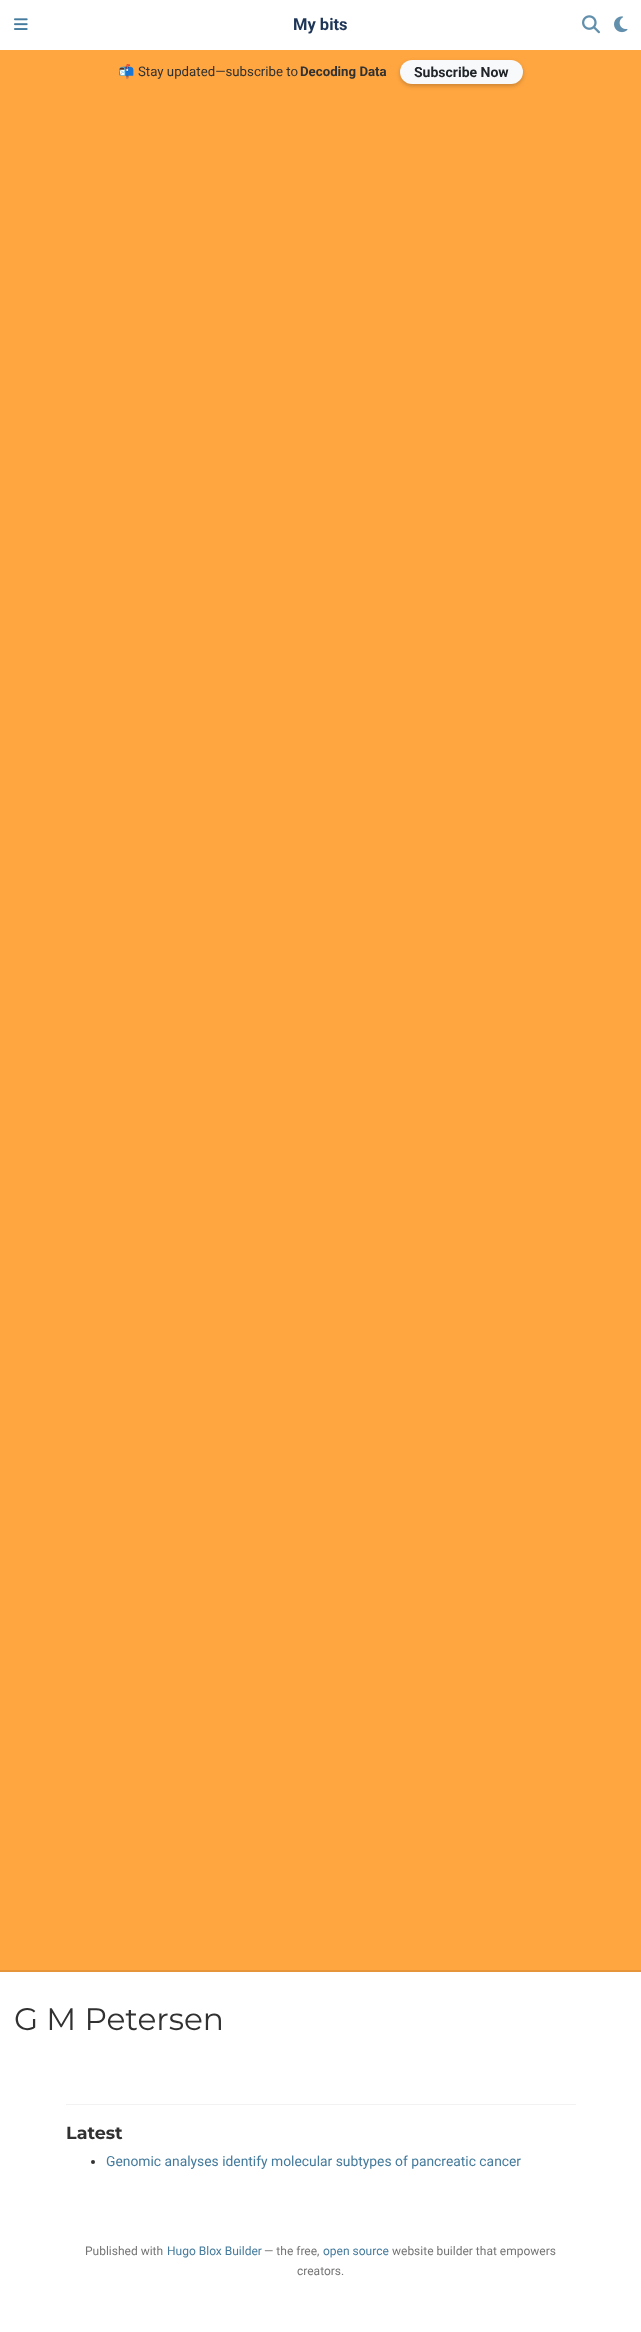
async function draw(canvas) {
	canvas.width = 641;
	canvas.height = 2332;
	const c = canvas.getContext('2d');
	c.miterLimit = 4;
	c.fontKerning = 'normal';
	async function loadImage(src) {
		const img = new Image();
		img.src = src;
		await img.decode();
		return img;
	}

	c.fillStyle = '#fff';
	c.fillRect(0, 0, 641, 2332);
	c.drawImage(await loadImage('img1.png'), 14, 18, 14, 12);
	c.font = 'bold 16.5px Roboto';
	c.fillStyle = '#1d3557';
	c.fillText('My bits', 293, 30);
	c.drawImage(await loadImage('img2.png'), 582, 15, 18, 19);
	c.drawImage(await loadImage('img3.png'), 614, 16, 14, 17);
	c.fillStyle = '#ffa640';
	c.fillRect(0, 50, 641, 1920);
	c.fillStyle = '#e6953a';
	c.fillRect(0, 1970, 641, 2);
	c.font = '13.25px Noto Color Emoji';
	c.fillStyle = '#313131';
	c.fillText('📬', 118, 76);
	c.font = '13.25px Roboto';
	c.fillText('Stay updated—subscribe to', 138, 76);
	c.font = 'bold 13.25px Roboto';
	c.fillText('Decoding Data', 300, 76);
	c.fillStyle = '#00000033';
	c.filter = 'blur(2px)';
	c.beginPath();
	c.roundRect(400, 62, 123, 24, 12);
	c.fill();
	c.filter = 'none';
	c.fillStyle = '#f8f9fa';
	c.beginPath();
	c.roundRect(400, 60, 123, 24, 12);
	c.fill();
	c.font = 'bold 14px Roboto';
	c.fillStyle = '#212529';
	c.fillText('Subscribe Now', 414, 77);
	c.font = '31.25px Montserrat';
	c.fillStyle = '#313131';
	c.fillText('G M Petersen', 14, 2030);
	c.fillStyle = '#f2f2f2';
	c.fillRect(66, 2104, 510, 1);
	c.font = 'bold 17.5px Montserrat';
	c.fillStyle = '#313131';
	c.fillText('Latest', 66, 2139);
	c.fillStyle = '#333';
	c.beginPath();
	c.arc(93, 2162, 2, 0, 2 * Math.PI);
	c.fill();
	c.font = '13.85px Roboto';
	c.fillStyle = '#457b9d';
	c.fillText('Genomic analyses identify molecular subtypes of pancreatic cancer', 106, 2166);
	c.font = '12px Roboto';
	c.fillStyle = '#757575';
	c.fillText('Published with', 85, 2255);
	c.fillStyle = '#457b9d';
	c.fillText('Hugo Blox Builder', 167, 2255);
	c.fillStyle = '#757575';
	c.fillText('— the free,', 264, 2255);
	c.fillStyle = '#457b9d';
	c.fillText('open source', 323, 2255);
	c.fillStyle = '#757575';
	c.fillText('website builder that empowers', 392, 2255);
	c.fillText('creators.', 297, 2275);
}

draw(document.querySelector('canvas'));
